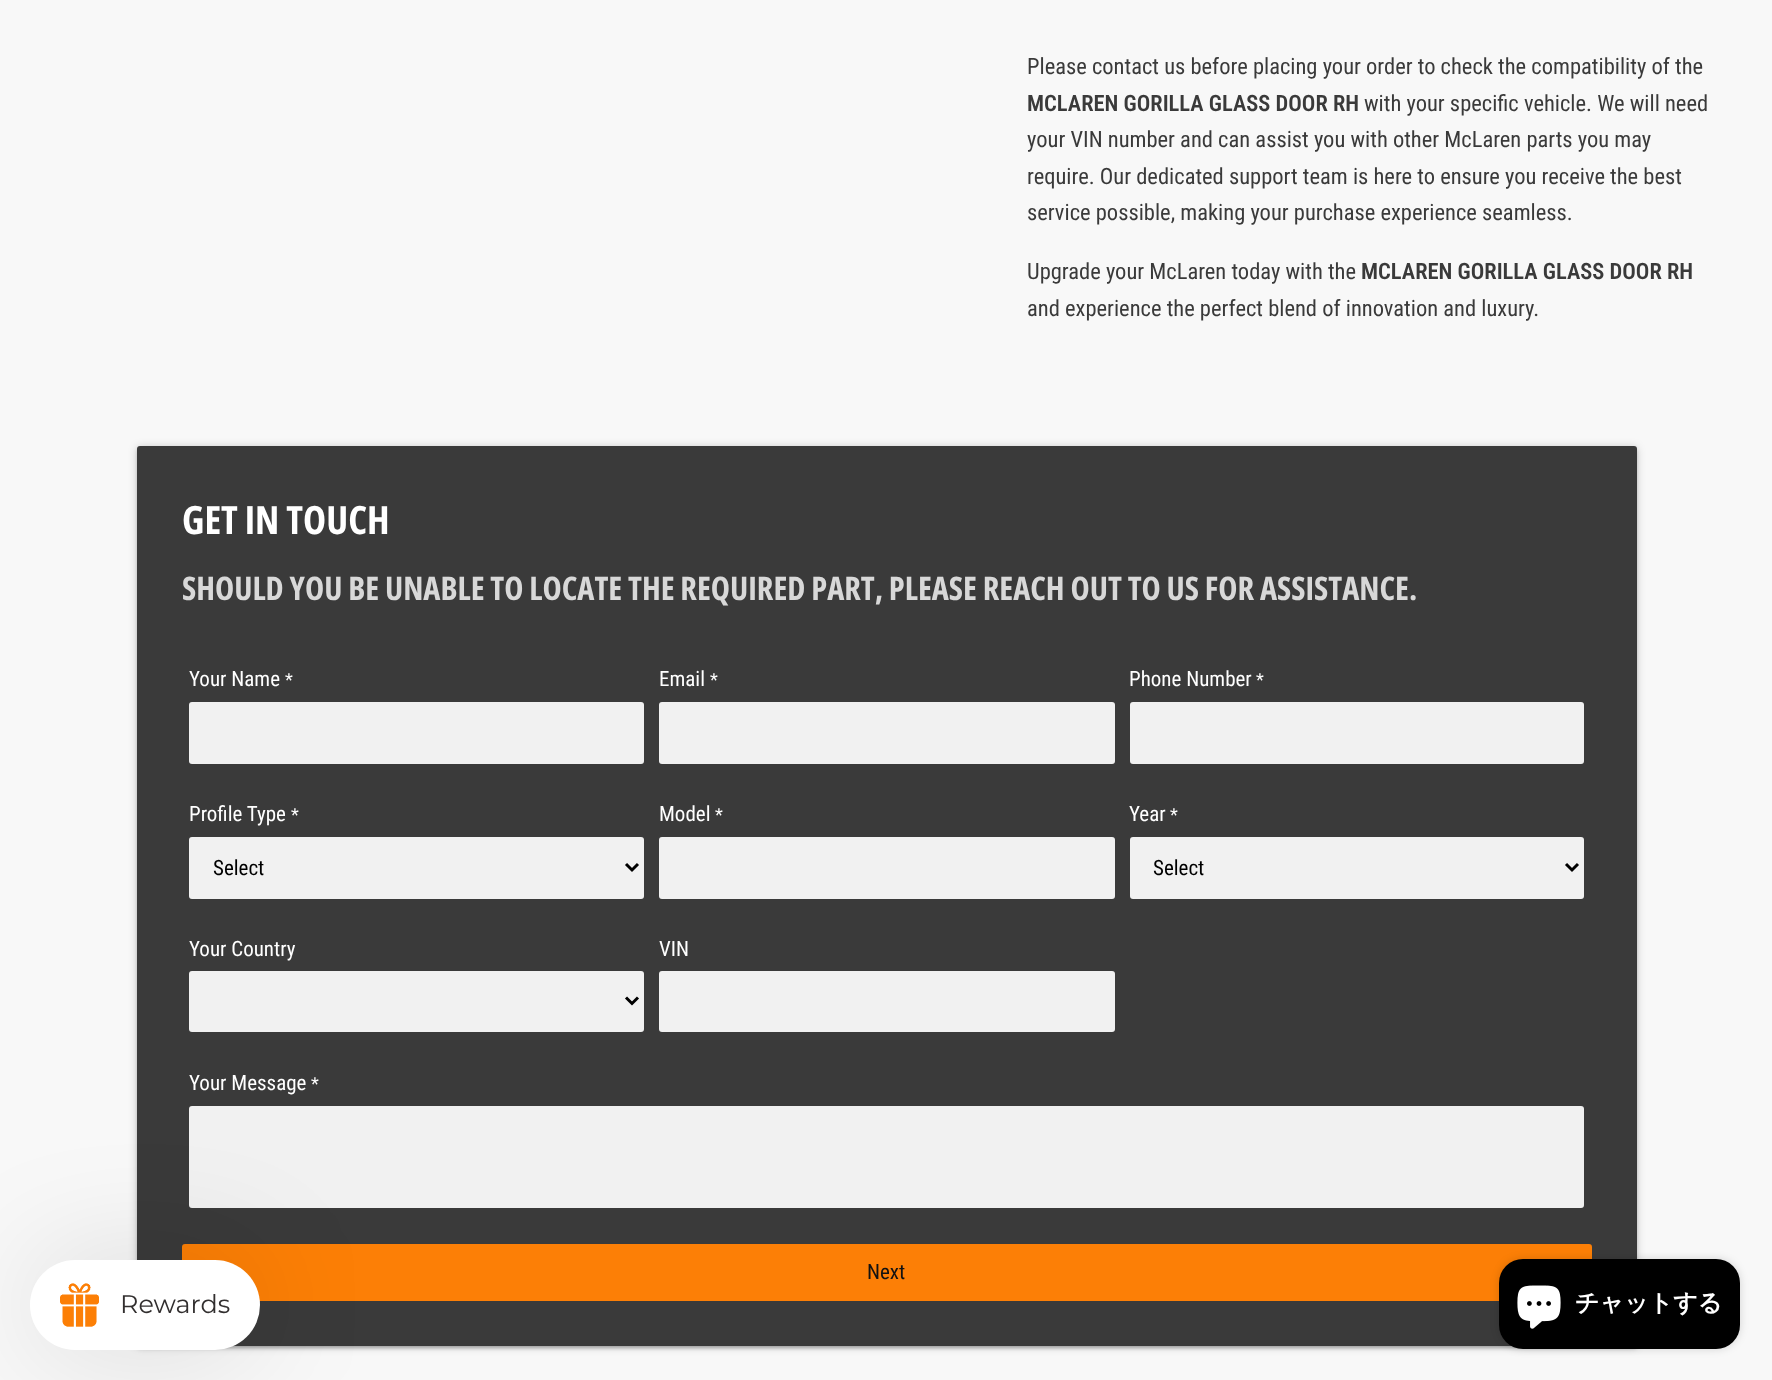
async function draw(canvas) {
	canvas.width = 1772;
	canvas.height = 1380;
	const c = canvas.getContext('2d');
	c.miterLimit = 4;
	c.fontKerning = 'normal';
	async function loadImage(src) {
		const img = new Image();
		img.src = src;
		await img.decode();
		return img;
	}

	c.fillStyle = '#f8f8f8';
	c.fillRect(0, 0, 1772, 1380);
	c.font = '22.5px Roboto Condensed';
	c.fillStyle = '#3a3a3a';
	c.fillText('Please contact us before placing your order to check the compatibility of the', 1027, 74);
	c.font = '600 22.5px Roboto Condensed';
	c.fillText('MCLAREN GORILLA GLASS DOOR RH', 1027, 111);
	c.font = '22.5px Roboto Condensed';
	for (const [text, x, y] of [
		['with your specific vehicle. We will need', 1364, 111],
		['your VIN number and can assist you with other McLaren parts you may', 1027, 147],
		['require. Our dedicated support team is here to ensure you receive the best', 1027, 184],
		['service possible, making your purchase experience seamless.', 1027, 220],
		['Upgrade your McLaren today with the', 1027, 279],
	]) {
		c.fillText(text, x, y);
	}
	c.font = '600 22.5px Roboto Condensed';
	c.fillText('MCLAREN GORILLA GLASS DOOR RH', 1361, 279);
	c.font = '22.5px Roboto Condensed';
	c.fillText('and experience the perfect blend of innovation and luxury.', 1027, 316);
	c.fillStyle = '#00000033';
	c.filter = 'blur(4px)';
	c.beginPath();
	c.roundRect(137, 447, 1500, 900, 3);
	c.fill();
	c.filter = 'none';
	c.fillStyle = '#0000001f';
	c.filter = 'blur(1px)';
	c.beginPath();
	c.rect(140, 453, 1494, 894);
	c.fill();
	c.filter = 'none';
	c.fillStyle = '#00000024';
	c.filter = 'blur(1.5px)';
	c.beginPath();
	c.roundRect(137, 449, 1500, 900, 3);
	c.fill();
	c.filter = 'none';
	c.fillStyle = '#3a3a3a';
	c.beginPath();
	c.roundRect(137, 446, 1500, 900, 3);
	c.fill();
	c.font = 'bold 39px Open Sans Condensed';
	c.fillStyle = '#fff';
	c.fillText('GET IN TOUCH', 182, 534);
	c.font = 'bold 32.45px Open Sans Condensed';
	c.fillStyle = '#d8d8d8';
	c.fillText('SHOULD YOU BE UNABLE TO LOCATE THE REQUIRED PART, PLEASE REACH OUT TO US FOR ASSISTANCE.', 182, 600);
	c.font = '21px Roboto Condensed';
	c.fillStyle = '#fff';
	c.fillText('Your Name', 189, 686);
	c.font = '18px Roboto Condensed';
	c.fillText('*', 285, 686);
	c.fillStyle = '#f1f1f1';
	c.beginPath();
	c.roundRect(189, 702, 455, 62, 3);
	c.fill();
	c.font = '21px Roboto Condensed';
	c.fillStyle = '#fff';
	c.fillText('Email', 659, 686);
	c.font = '18px Roboto Condensed';
	c.fillText('*', 710, 686);
	c.fillStyle = '#f1f1f1';
	c.beginPath();
	c.roundRect(659, 702, 456, 62, 3);
	c.fill();
	c.font = '21px Roboto Condensed';
	c.fillStyle = '#fff';
	c.fillText('Phone Number', 1129, 686);
	c.font = '18px Roboto Condensed';
	c.fillText('*', 1256, 686);
	c.fillStyle = '#f1f1f1';
	c.beginPath();
	c.roundRect(1130, 702, 454, 62, 3);
	c.fill();
	c.font = '21px Roboto Condensed';
	c.fillStyle = '#fff';
	c.fillText('Profile Type', 189, 821);
	c.font = '18px Roboto Condensed';
	c.fillText('*', 291, 821);
	c.fillStyle = '#f1f1f1';
	c.beginPath();
	c.roundRect(189, 837, 455, 62, 3);
	c.fill();
	c.beginPath();
	c.moveTo(626, 864);
	c.lineTo(632, 870);
	c.lineTo(638, 864);
	c.strokeStyle = '#000';
	c.lineWidth = 3;
	c.stroke();
	c.font = '21px Roboto Condensed';
	c.fillStyle = '#000';
	c.fillText('Select', 213, 875);
	c.fillStyle = '#fff';
	c.fillText('Model', 659, 821);
	c.font = '18px Roboto Condensed';
	c.fillText('*', 715, 821);
	c.fillStyle = '#f1f1f1';
	c.beginPath();
	c.roundRect(659, 837, 456, 62, 3);
	c.fill();
	c.font = '21px Roboto Condensed';
	c.fillStyle = '#fff';
	c.fillText('Year', 1129, 821);
	c.font = '18px Roboto Condensed';
	c.fillText('*', 1170, 821);
	c.fillStyle = '#f1f1f1';
	c.beginPath();
	c.roundRect(1130, 837, 454, 62, 3);
	c.fill();
	c.beginPath();
	c.moveTo(1566, 864);
	c.lineTo(1572, 870);
	c.lineTo(1578, 864);
	c.stroke();
	c.font = '21px Roboto Condensed';
	c.fillStyle = '#000';
	c.fillText('Select', 1153, 875);
	c.fillStyle = '#fff';
	c.fillText('Your Country', 189, 956);
	c.fillStyle = '#f1f1f1';
	c.beginPath();
	c.roundRect(189, 971, 455, 61, 3);
	c.fill();
	c.beginPath();
	c.moveTo(626, 997.5);
	c.lineTo(632, 1003.5);
	c.lineTo(638, 997.5);
	c.stroke();
	c.fillStyle = '#fff';
	c.fillText('VIN', 659, 956);
	c.fillStyle = '#f1f1f1';
	c.beginPath();
	c.roundRect(659, 971, 456, 61, 3);
	c.fill();
	c.fillStyle = '#fff';
	c.fillText('Your Message', 189, 1090);
	c.font = '18px Roboto Condensed';
	c.fillText('*', 311, 1090);
	c.fillStyle = '#f1f1f1';
	c.beginPath();
	c.roundRect(189, 1106, 1395, 102, 3);
	c.fill();
	c.fillStyle = '#fc7f06';
	c.beginPath();
	c.roundRect(183, 1245, 1408, 55, 2);
	c.fill();
	c.strokeStyle = '#fc7f06';
	c.lineWidth = 2;
	c.stroke();
	c.font = '21px Roboto Condensed';
	c.fillStyle = '#121212';
	c.fillText('Next', 867, 1279);
	c.fillStyle = '#0000001f';
	c.filter = 'blur(60px)';
	c.beginPath();
	c.roundRect(30, 1260, 230, 90, 45);
	c.fill();
	c.filter = 'none';
	c.fillStyle = '#fff';
	c.beginPath();
	c.roundRect(30, 1260, 230, 90, 45);
	c.fill();
	c.drawImage(await loadImage('img1.png'), 60, 1283, 39, 44);
	c.font = '25.5px Montserrat';
	c.fillStyle = '#322f2f';
	c.fillText('Rewards', 120, 1313);
	c.fillStyle = '#00000026';
	c.filter = 'blur(4px)';
	c.beginPath();
	c.roundRect(1499, 1259, 241, 90, 24);
	c.fill();
	c.filter = 'none';
	c.fillStyle = '#000';
	c.beginPath();
	c.roundRect(1499, 1259, 241, 90, 24);
	c.fill();
	c.drawImage(await loadImage('img2.png'), 1517, 1285, 44, 44);
	c.font = 'bold 24px WenQuanYi Zen Hei';
	c.fillStyle = '#fff';
	c.fillText('チャットする', 1575, 1311);
}

draw(document.querySelector('canvas'));
